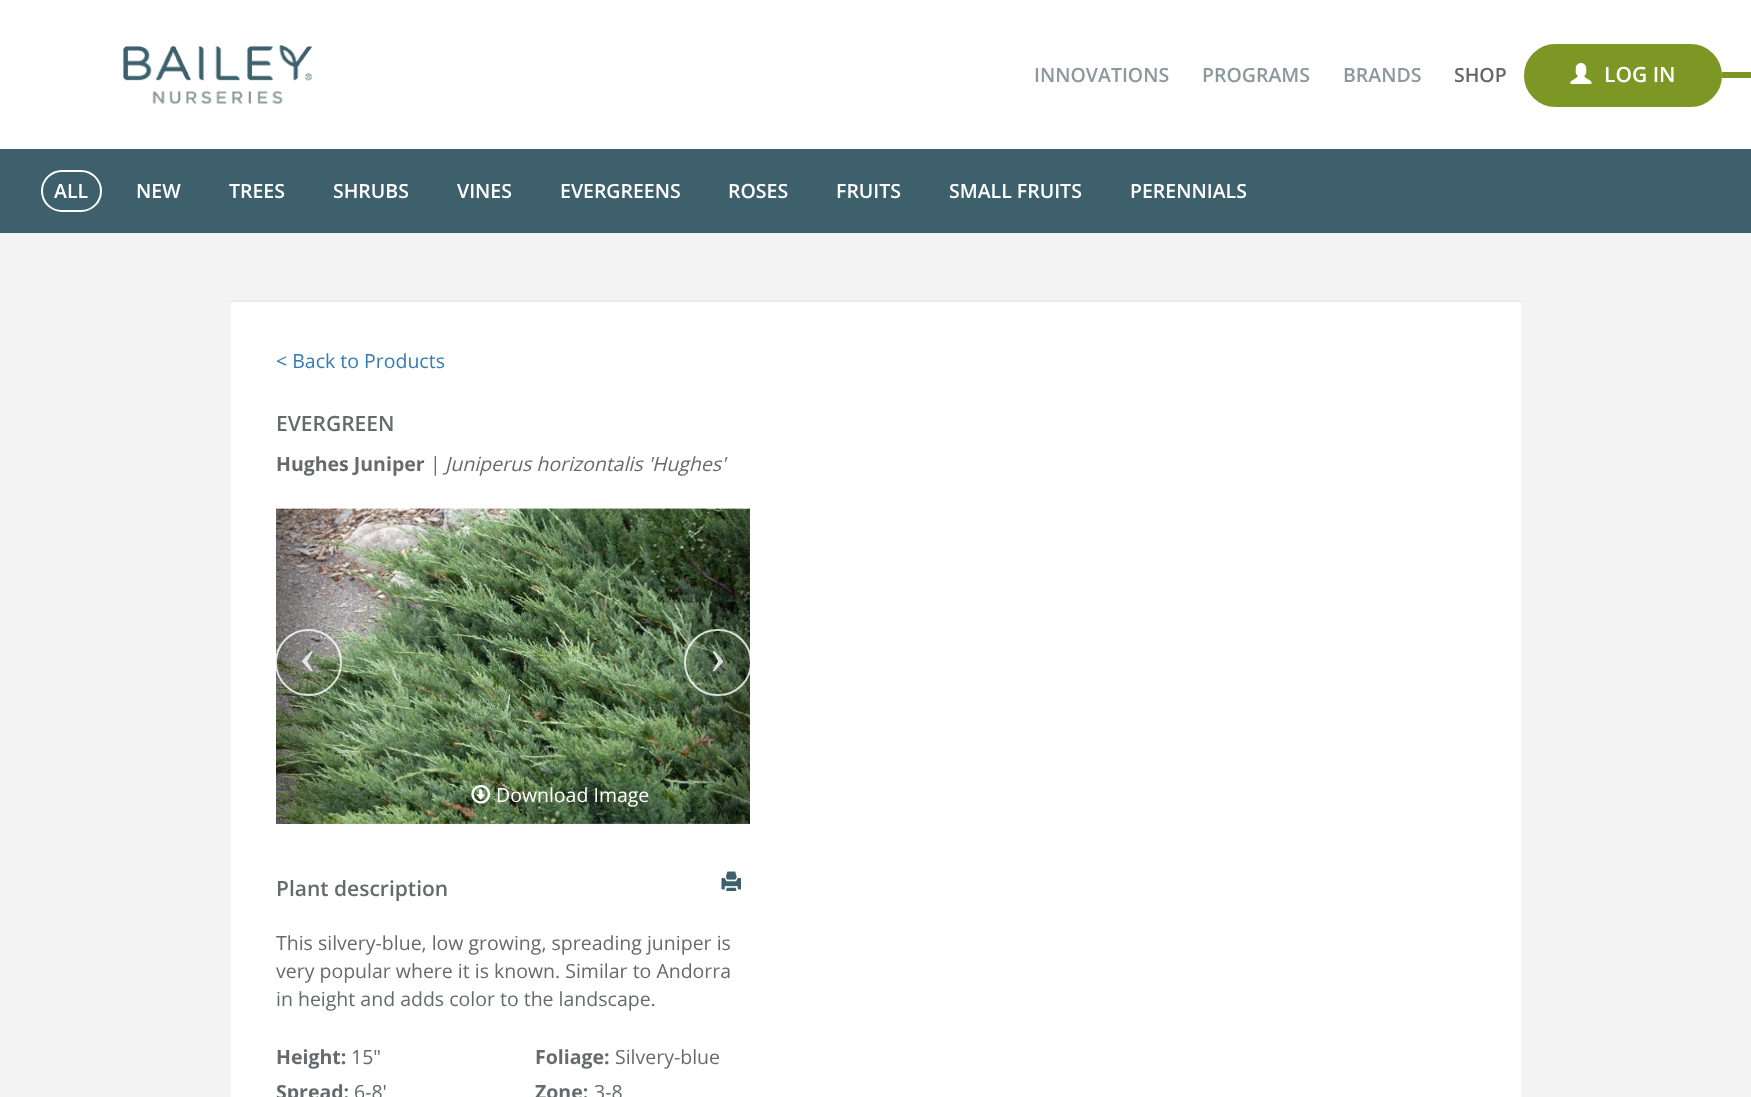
async function draw(canvas) {
	canvas.width = 1751;
	canvas.height = 1097;
	const c = canvas.getContext('2d');
	c.miterLimit = 4;
	c.fontKerning = 'normal';
	async function loadImage(src) {
		const img = new Image();
		img.src = src;
		await img.decode();
		return img;
	}
	let gradient;

	c.fillStyle = '#f3f3f4';
	c.fillRect(0, 0, 1751, 1097);
	c.fillStyle = '#fff';
	c.fillRect(0, 0, 1751, 149);
	c.drawImage(await loadImage('img1.png'), 123, 45, 189, 59);
	c.font = '600 19.5px Open Sans';
	c.fillStyle = '#8b999a';
	for (const [text, x, y] of [
		['INNOVATIONS', 1034, 82],
		['PROGRAMS', 1202, 82],
		['BRANDS', 1343, 82],
	]) {
		c.fillText(text, x, y);
	}
	c.fillStyle = '#666';
	c.fillText('SHOP', 1454, 82);
	c.fillStyle = '#7d9724';
	c.beginPath();
	c.roundRect(1525, 45, 196, 61, 30.5);
	c.fill();
	c.strokeStyle = '#7d9724';
	c.lineWidth = 2;
	c.stroke();
	c.drawImage(await loadImage('img2.png'), 1570, 63, 22, 21);
	c.font = '600 21px Open Sans';
	c.fillStyle = '#fff';
	c.fillText('LOG IN', 1604, 82);
	c.fillStyle = '#7d9724';
	c.fillRect(1722, 72, 29, 6);
	c.fillStyle = '#3d606c';
	c.fillRect(0, 149, 1751, 84);
	c.beginPath();
	c.roundRect(42, 171, 59, 40, 20);
	c.strokeStyle = '#fff';
	c.stroke();
	c.font = '600 19.5px Open Sans';
	c.fillStyle = '#fff';
	for (const [text, x, y] of [
		['ALL', 54, 198],
		['NEW', 136, 198],
		['TREES', 229, 198],
		['SHRUBS', 333, 198],
		['VINES', 457, 198],
		['EVERGREENS', 560, 198],
		['ROSES', 728, 198],
		['FRUITS', 836, 198],
		['SMALL FRUITS', 949, 198],
		['PERENNIALS', 1130, 198],
	]) {
		c.fillText(text, x, y);
	}
	c.fillRect(231, 302, 1290, 795);
	c.fillStyle = '#e7eaec';
	c.fillRect(231, 300, 1290, 2);
	c.font = '19.5px Open Sans';
	c.fillStyle = '#337ab7';
	c.fillText('< Back to Products', 276, 368);
	c.font = '600 21px Open Sans';
	c.fillStyle = '#676a6c';
	c.fillText('EVERGREEN', 276, 431);
	c.font = 'bold 19.5px Open Sans';
	c.fillText('Hughes Juniper', 276, 471);
	c.font = '19.5px Open Sans';
	c.fillText('|', 430, 471);
	c.font = 'italic 19.5px Open Sans';
	c.fillText('Juniperus horizontalis \'Hughes\'', 445, 471);
	c.drawImage(await loadImage('img3.png'), 276, 508, 474, 316);
	gradient = c.createLinearGradient(276, 666, 347, 666);
	gradient.addColorStop(0, '#00000066');
	gradient.addColorStop(1, '#00000000');
	c.fillStyle = gradient;
	c.fillRect(276, 509, 67, 315);
	c.beginPath();
	c.arc(308.5, 662.5, 32.5, 0, 2 * Math.PI);
	c.strokeStyle = '#ffffffcc';
	c.stroke();
	c.font = '52px Liberation Serif';
	c.fillStyle = '#e6e7e5';
	c.fillText('‹', 299, 673);
	gradient = c.createLinearGradient(678, 666, 750, 666);
	gradient.addColorStop(0, '#00000000');
	gradient.addColorStop(1, '#00000066');
	c.fillStyle = gradient;
	c.fillRect(682, 509, 68, 315);
	c.beginPath();
	c.roundRect(685, 630, 66, 65, 32.5);
	c.stroke();
	c.fillStyle = '#dde0dc';
	c.fillText('›', 709, 673);
	c.drawImage(await loadImage('img4.png'), 471, 784, 20, 20);
	c.font = '19.5px Open Sans';
	c.fillStyle = '#fff';
	c.fillText('Download Image', 496, 802);
	c.font = '600 21px Open Sans';
	c.fillStyle = '#676a6c';
	c.fillText('Plant description', 276, 896);
	c.drawImage(await loadImage('img5.png'), 721, 871, 20, 20);
	c.font = '19.5px Open Sans';
	for (const [text, x, y] of [
		['This silvery-blue, low growing, spreading juniper is', 276, 950],
		['very popular where it is known. Similar to Andorra', 276, 978],
		['in height and adds color to the landscape.', 276, 1006],
	]) {
		c.fillText(text, x, y);
	}
	c.font = 'bold 19.5px Open Sans';
	c.fillText('Height:', 276, 1064);
	c.font = '19.5px Open Sans';
	c.fillText('15"', 351, 1064);
	c.font = 'bold 19.5px Open Sans';
	c.fillText('Spread:', 276, 1099);
	c.font = '19.5px Open Sans';
	c.fillText('6-8\'', 354, 1099);
	c.font = 'bold 19.5px Open Sans';
	c.fillText('Foliage:', 535, 1064);
	c.font = '19.5px Open Sans';
	c.fillText('Silvery-blue', 615, 1064);
	c.font = 'bold 19.5px Open Sans';
	c.fillText('Zone:', 535, 1099);
	c.font = '19.5px Open Sans';
	c.fillText('3-8', 594, 1099);
}

draw(document.querySelector('canvas'));
